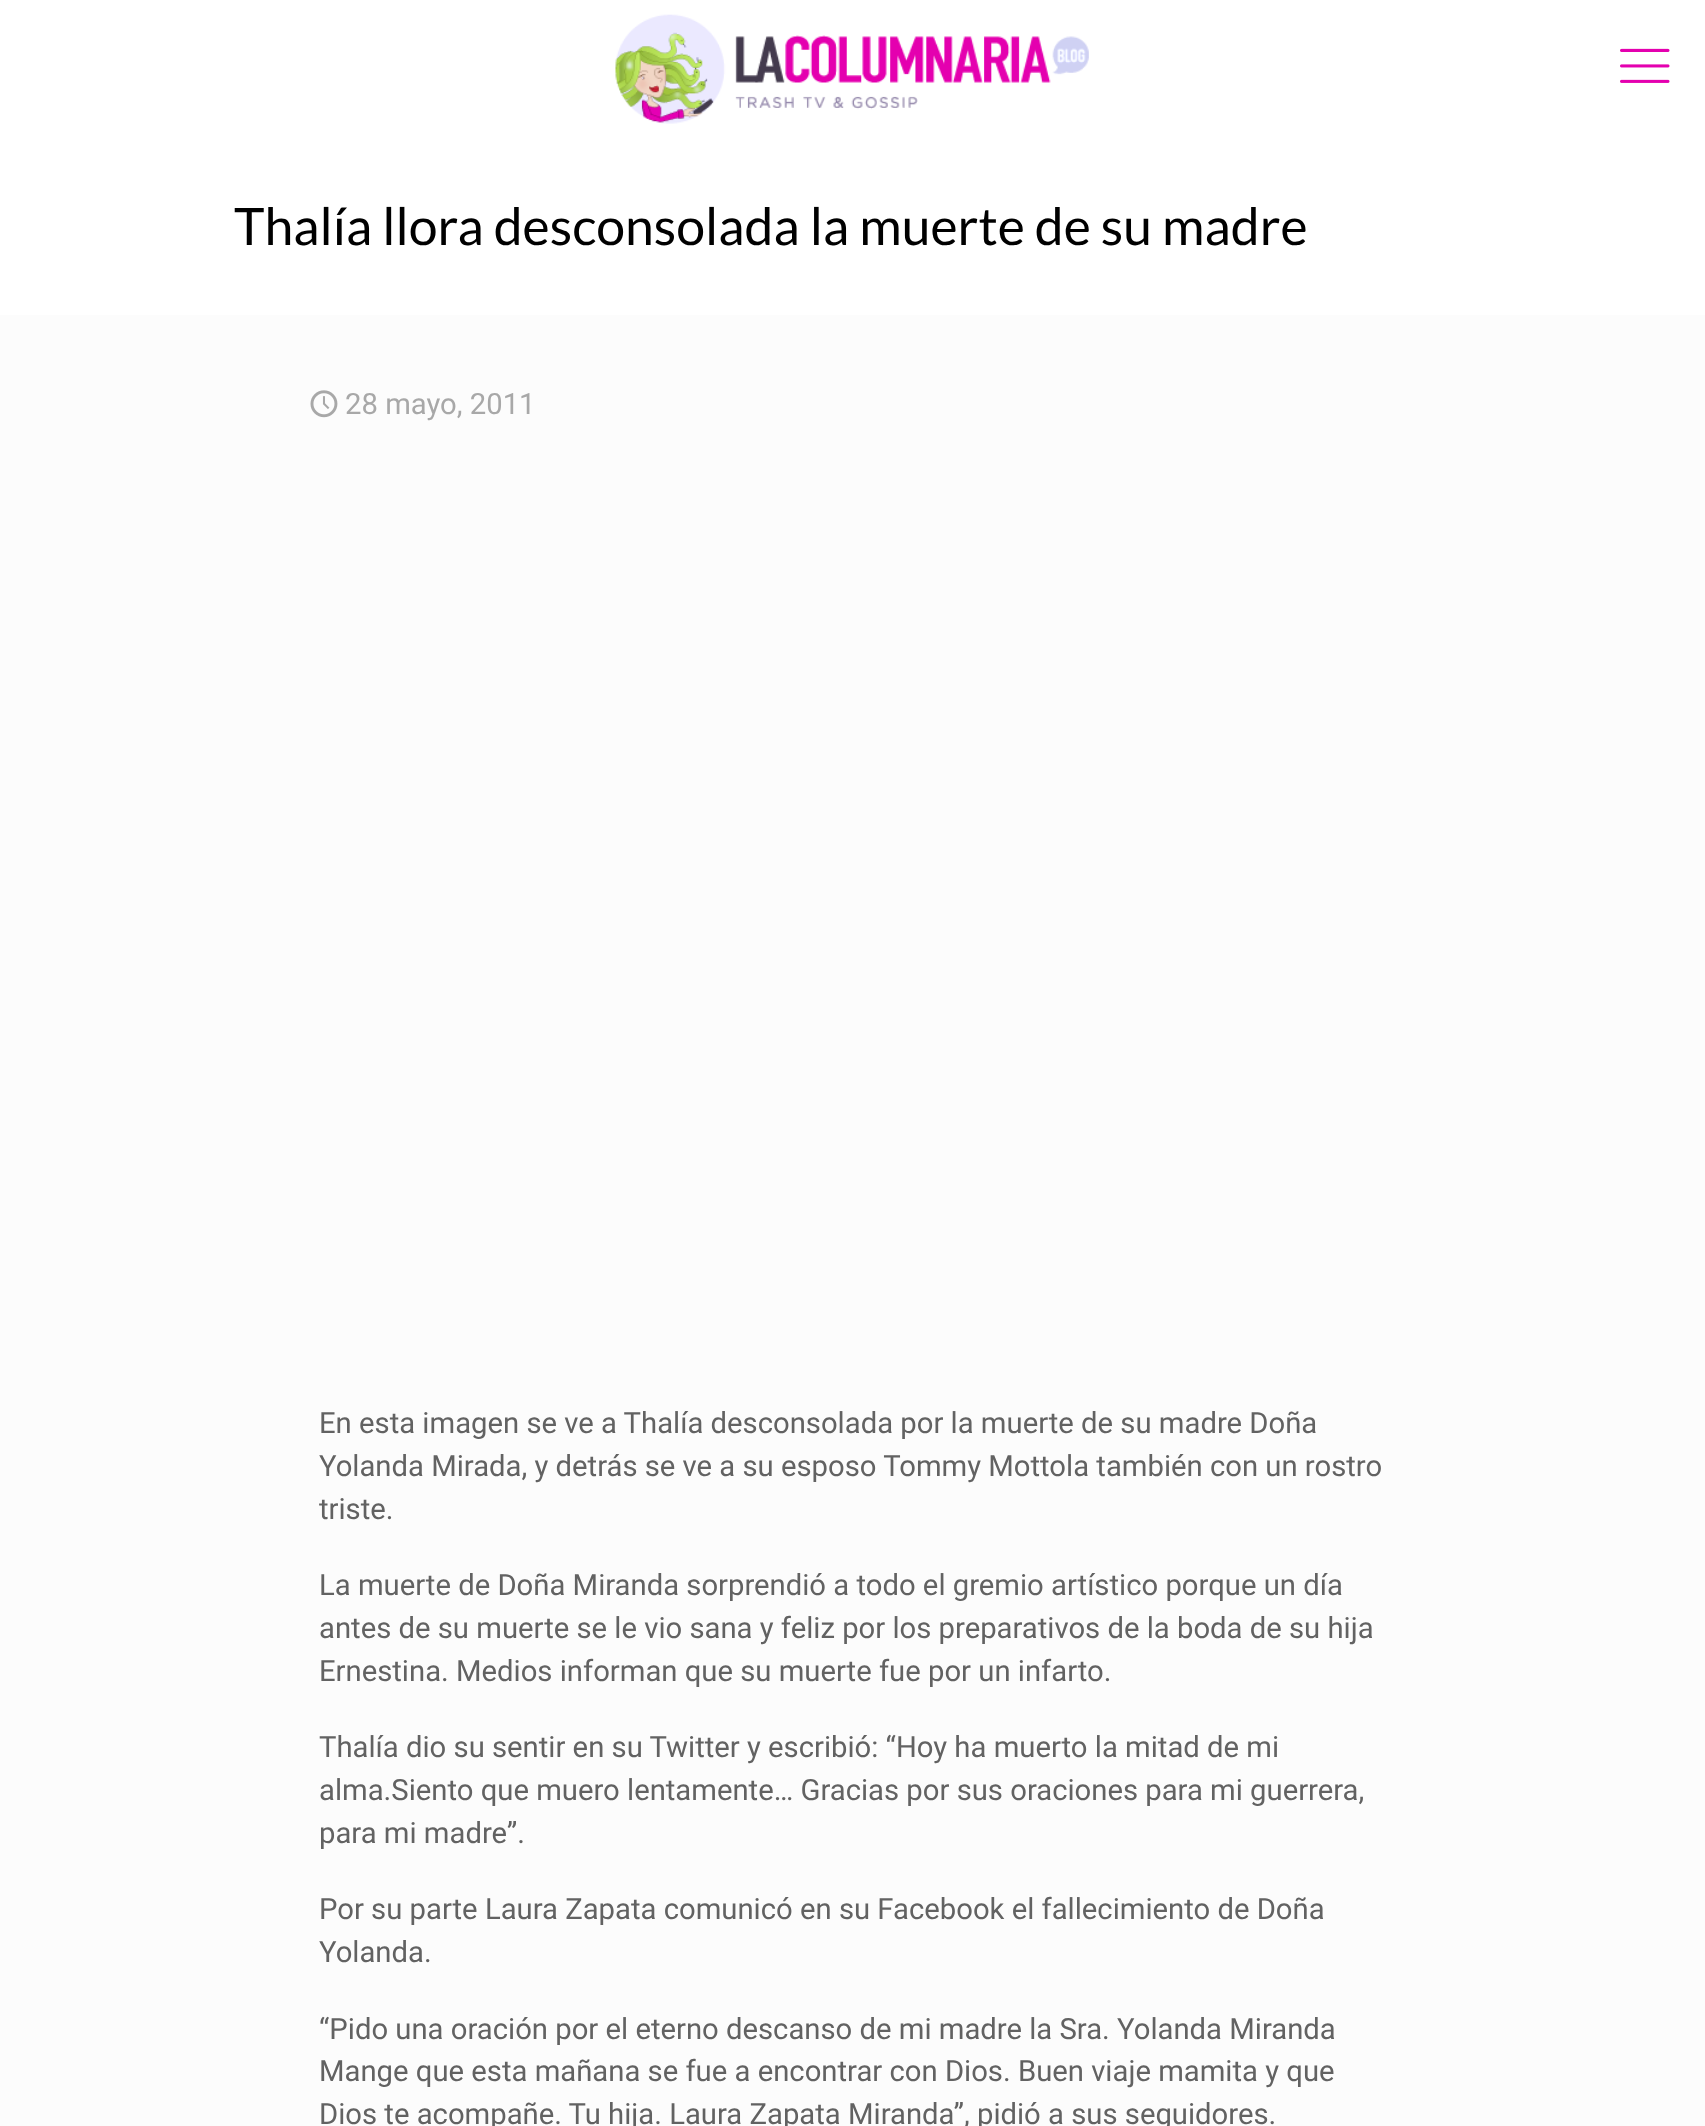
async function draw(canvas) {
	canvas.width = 1705;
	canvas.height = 2126;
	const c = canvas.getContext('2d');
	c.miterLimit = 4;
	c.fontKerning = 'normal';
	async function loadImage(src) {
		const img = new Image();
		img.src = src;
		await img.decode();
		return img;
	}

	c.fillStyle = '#fcfcfc';
	c.fillRect(0, 0, 1705, 2126);
	c.fillStyle = '#fff';
	c.fillRect(0, 0, 1705, 315);
	c.drawImage(await loadImage('img1.png'), 615, 14, 474, 110);
	c.drawImage(await loadImage('img2.png'), 1620, 48, 50, 35);
	c.font = '51.75px Lato';
	c.fillStyle = '#000';
	c.fillText('Thalía llora desconsolada la muerte de su madre', 234, 245);
	c.drawImage(await loadImage('img3.png'), 310, 390, 28, 28);
	c.font = '29.25px Roboto';
	c.fillStyle = '#a8a8a8';
	c.fillText('28 mayo, 2011', 345, 414);
	c.fillStyle = '#626262';
	for (const [text, x, y] of [
		['En esta imagen se ve a Thalía desconsolada por la muerte de su madre Doña', 319, 1433],
		['Yolanda Mirada, y detrás se ve a su esposo Tommy Mottola también con un rostro', 319, 1476],
		['triste.', 319, 1519],
		['La muerte de Doña Miranda sorprendió a todo el gremio artístico porque un día', 319, 1595],
		['antes de su muerte se le vio sana y feliz por los preparativos de la boda de su hija', 319, 1638],
		['Ernestina. Medios informan que su muerte fue por un infarto.', 319, 1681],
		['Thalía dio su sentir en su Twitter y escribió: “Hoy ha muerto la mitad de mi', 319, 1757],
		['alma.Siento que muero lentamente… Gracias por sus oraciones para mi guerrera,', 319, 1800],
		['para mi madre”.', 319, 1843],
		['Por su parte Laura Zapata comunicó en su Facebook el fallecimiento de Doña', 319, 1919],
		['Yolanda.', 319, 1962],
		['“Pido una oración por el eterno descanso de mi madre la Sra. Yolanda Miranda', 319, 2039],
		['Mange que esta mañana se fue a encontrar con Dios. Buen viaje mamita y que', 319, 2081],
		['Dios te acompañe. Tu hija. Laura Zapata Miranda”, pidió a sus seguidores.', 319, 2124],
	]) {
		c.fillText(text, x, y);
	}
}

draw(document.querySelector('canvas'));
